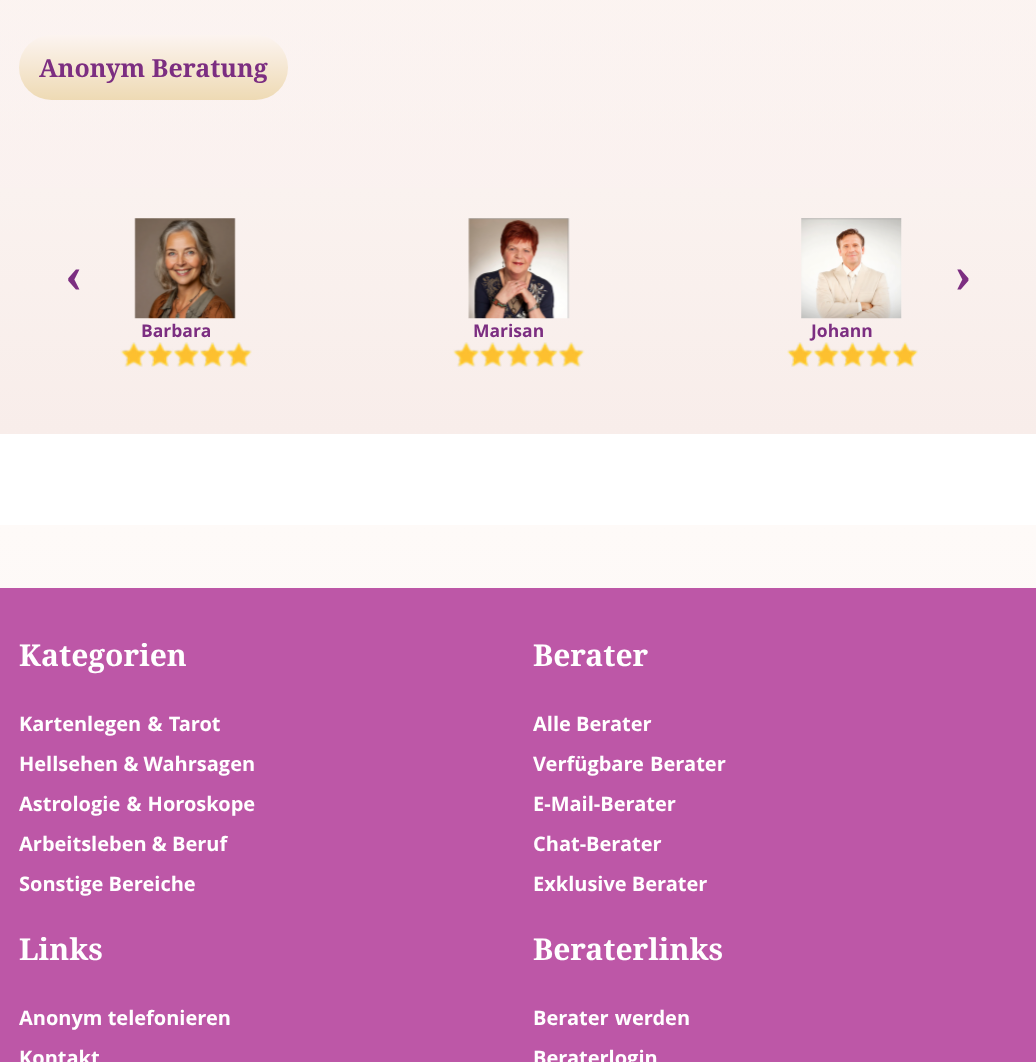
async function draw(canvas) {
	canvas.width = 1036;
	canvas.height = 1062;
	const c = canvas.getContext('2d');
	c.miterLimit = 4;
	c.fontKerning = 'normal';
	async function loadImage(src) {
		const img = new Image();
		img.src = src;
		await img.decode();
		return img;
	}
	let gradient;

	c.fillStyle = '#fff';
	c.fillRect(0, 0, 1036, 1062);
	gradient = c.createLinearGradient(518, -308, 518, 434);
	gradient.addColorStop(0, '#fefaf8');
	gradient.addColorStop(1, '#fbf4f3');
	c.fillStyle = gradient;
	c.fillRect(0, 0, 1036, 188);
	gradient = c.createLinearGradient(518, -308, 518, 434);
	gradient.addColorStop(0, '#fcf4f080');
	gradient.addColorStop(1, '#f7e9e780');
	c.fillStyle = gradient;
	c.fillRect(0, 0, 1036, 188);
	gradient = c.createLinearGradient(153, 35, 153, 100);
	gradient.addColorStop(0, '#fcf4f0');
	gradient.addColorStop(1, '#eedab4');
	c.fillStyle = gradient;
	c.beginPath();
	c.roundRect(19, 35, 269, 65, 32.5);
	c.fill();
	c.font = 'bold 25px Droid Serif';
	c.fillStyle = '#7c2e81';
	c.fillText('Anonym Beratung', 39, 77);
	gradient = c.createLinearGradient(518, 187, 518, 434);
	gradient.addColorStop(0, '#faf2ef');
	gradient.addColorStop(1, '#f8edea');
	c.fillStyle = gradient;
	c.fillRect(0, 188, 1036, 246);
	c.font = 'bold 50px Droid Serif';
	c.fillStyle = '#7c2e81';
	c.fillText('‹', 65, 293);
	c.fillText('›', 954, 293);
	c.drawImage(await loadImage('img1.png'), 134, 218, 102, 101);
	c.font = 'bold 17.5px "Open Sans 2"';
	c.fillText('Barbara', 141, 337);
	c.drawImage(await loadImage('img2.png'), 120, 342, 27, 25);
	c.drawImage(await loadImage('img3.png'), 147, 342, 26, 25);
	c.drawImage(await loadImage('img4.png'), 173, 342, 26, 25);
	c.drawImage(await loadImage('img5.png'), 200, 342, 25, 26);
	c.drawImage(await loadImage('img6.png'), 225, 342, 27, 25);
	c.drawImage(await loadImage('img7.png'), 468, 218, 102, 101);
	c.fillText('Marisan', 473, 337);
	c.drawImage(await loadImage('img8.png'), 453, 342, 27, 25);
	c.drawImage(await loadImage('img9.png'), 479, 342, 27, 25);
	c.drawImage(await loadImage('img10.png'), 505, 342, 27, 25);
	c.drawImage(await loadImage('img11.png'), 532, 342, 26, 25);
	c.drawImage(await loadImage('img8.png'), 558, 342, 27, 25);
	c.drawImage(await loadImage('img12.png'), 801, 218, 101, 101);
	c.fillText('Johann', 811, 337);
	c.drawImage(await loadImage('img13.png'), 787, 342, 26, 25);
	c.drawImage(await loadImage('img14.png'), 813, 342, 27, 25);
	c.drawImage(await loadImage('img15.png'), 840, 342, 25, 25);
	c.drawImage(await loadImage('img16.png'), 866, 342, 26, 25);
	c.drawImage(await loadImage('img13.png'), 892, 342, 26, 25);
	gradient = c.createLinearGradient(518, 525, 518, 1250);
	gradient.addColorStop(0, '#fefaf8');
	gradient.addColorStop(1, '#fbf4f3');
	c.fillStyle = gradient;
	c.fillRect(0, 525, 1036, 63);
	c.fillStyle = '#bd57a7';
	c.fillRect(0, 588, 1036, 474);
	c.font = 'bold 30px Droid Serif';
	c.fillStyle = '#fff';
	c.fillText('Kategorien', 19, 666);
	c.wordSpacing = '1px';
	c.font = 'bold 20px Open Sans';
	c.fillText('Kartenlegen & Tarot', 19, 731);
	c.wordSpacing = '0px';
	c.fillText('Hellsehen & Wahrsagen', 19, 771);
	c.wordSpacing = '1px';
	c.fillText('Astrologie & Horoskope', 19, 811);
	c.wordSpacing = '0px';
	c.fillText('Arbeitsleben & Beruf', 19, 851);
	c.fillText('Sonstige Bereiche', 19, 891);
	c.font = 'bold 30px Droid Serif';
	c.fillText('Berater', 533, 666);
	c.font = 'bold 20px Open Sans';
	c.fillText('Alle Berater', 533, 731);
	c.wordSpacing = '1px';
	c.fillText('Verfügbare Berater', 533, 771);
	c.wordSpacing = '0px';
	for (const [text, x, y] of [
		['E-Mail-Berater', 533, 811],
		['Chat-Berater', 533, 851],
		['Exklusive Berater', 533, 891],
	]) {
		c.fillText(text, x, y);
	}
	c.font = 'bold 30px Droid Serif';
	c.fillText('Links', 19, 960);
	c.font = 'bold 20px Open Sans';
	c.fillText('Anonym telefonieren', 19, 1025);
	c.fillText('Kontakt', 19, 1065);
	c.font = 'bold 30px Droid Serif';
	c.fillText('Beraterlinks', 533, 960);
	c.wordSpacing = '1px';
	c.font = 'bold 20px Open Sans';
	c.fillText('Berater werden', 533, 1025);
	c.wordSpacing = '0px';
	c.fillText('Beraterlogin', 533, 1065);
}

draw(document.querySelector('canvas'));
